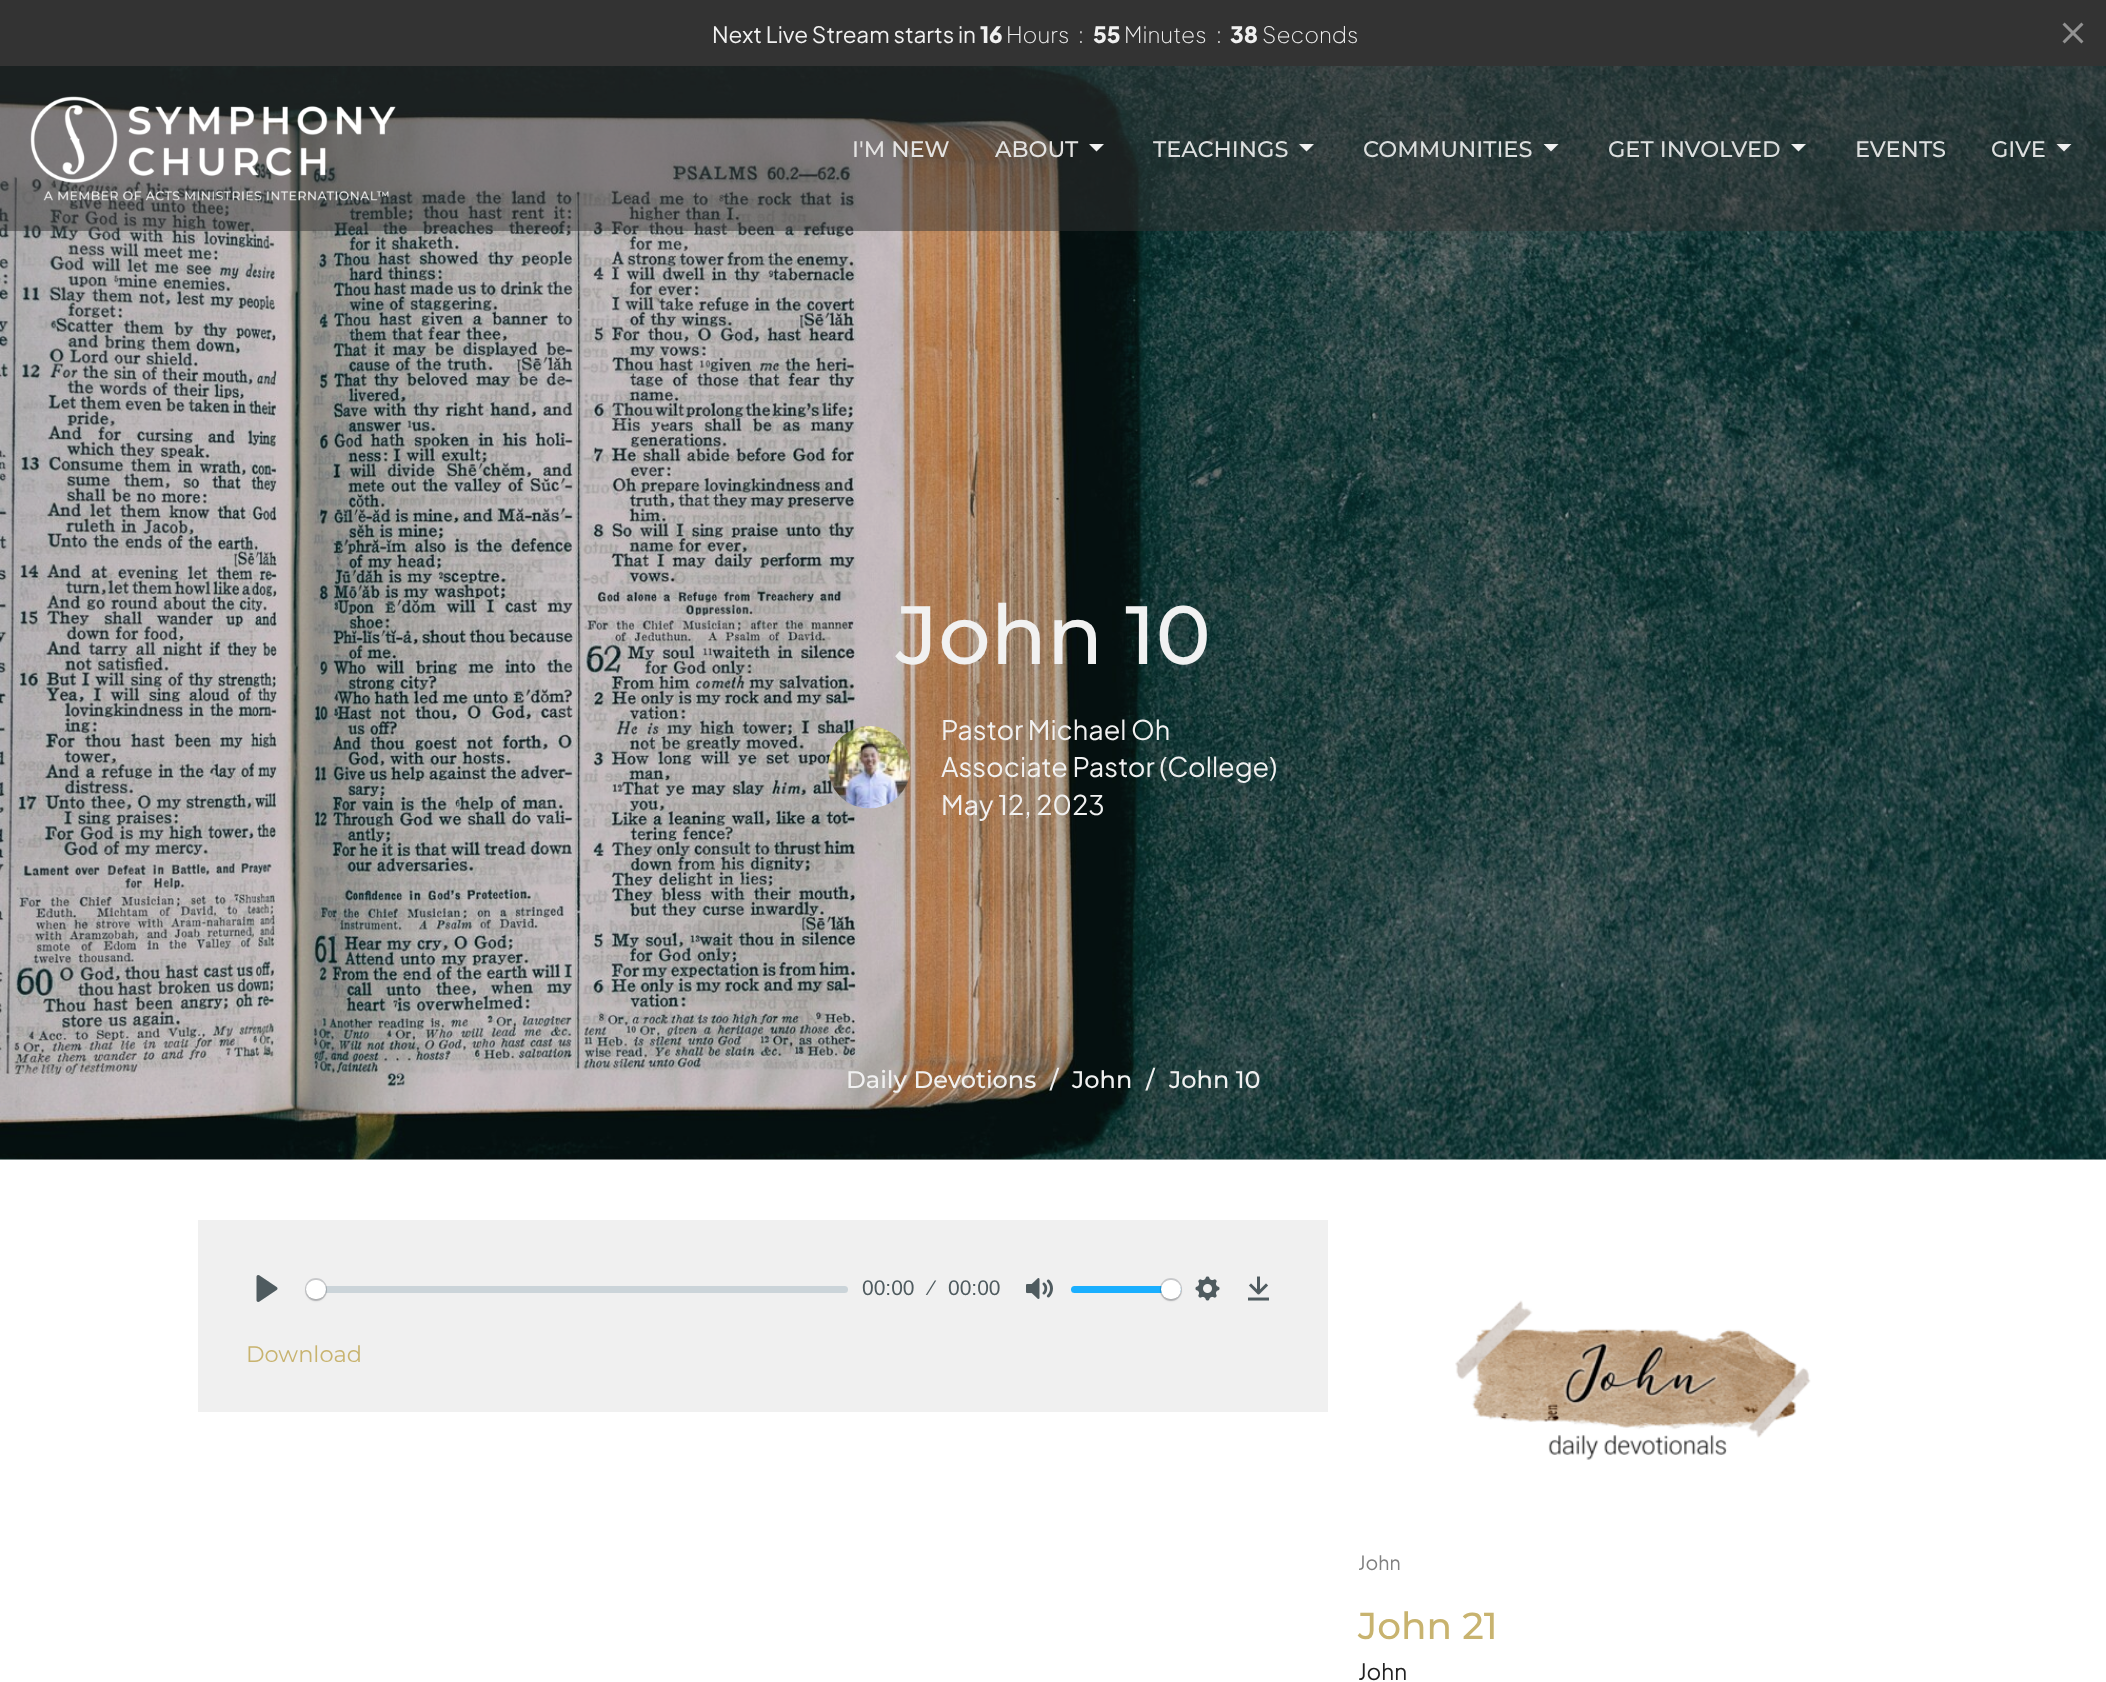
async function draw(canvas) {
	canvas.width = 2106;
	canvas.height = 1682;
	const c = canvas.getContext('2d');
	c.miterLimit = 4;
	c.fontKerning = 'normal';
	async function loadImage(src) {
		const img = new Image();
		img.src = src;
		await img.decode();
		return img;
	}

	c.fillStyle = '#fff';
	c.fillRect(0, 0, 2106, 1682);
	c.fillStyle = '#ebebeb';
	c.fillRect(0, 1159, 2106, 1);
	c.fillStyle = '#333';
	c.fillRect(0, 0, 2106, 66);
	c.font = '22.5px Plus Jakarta Sans';
	c.fillStyle = '#f1f1f1';
	c.fillText('Next Live Stream starts in', 712, 43);
	c.font = '800 22.5px Plus Jakarta Sans';
	c.fillText('16', 980, 43);
	c.font = '200 22.5px Plus Jakarta Sans';
	c.fillText('Hours', 1006, 43);
	c.fillText(':', 1078, 43);
	c.font = '800 22.5px Plus Jakarta Sans';
	c.fillText('55', 1093, 43);
	c.font = '200 22.5px Plus Jakarta Sans';
	c.fillText('Minutes', 1124, 43);
	c.fillText(':', 1216, 43);
	c.font = '800 22.5px Plus Jakarta Sans';
	c.fillText('38', 1230, 43);
	c.font = '200 22.5px Plus Jakarta Sans';
	c.fillText('Seconds', 1262, 43);
	c.drawImage(await loadImage('img1.png'), 2062, 22, 22, 22);
	c.drawImage(await loadImage('img3.png'), 0, 66, 2106, 1094);
	c.fillStyle = '#3333337d';
	c.fillRect(0, 66, 2106, 165);
	c.drawImage(await loadImage('img2.png'), 30, 96, 366, 105);
	c.font = '500 22.5px Montserrat';
	c.fillStyle = '#e4e3e2';
	c.fillText('I\'M NEW', 852, 157);
	c.fillText('ABOUT', 995, 157);
	c.fillStyle = '#f1f1f1';
	c.beginPath();
	c.moveTo(1089, 144);
	c.lineTo(1096.5, 151.5);
	c.lineTo(1104, 144);
	c.closePath();
	c.fill();
	c.fillStyle = '#dddfdf';
	c.fillText('TEACHINGS', 1153, 157);
	c.fillStyle = '#f1f1f1';
	c.beginPath();
	c.moveTo(1299, 144);
	c.lineTo(1306.5, 151.5);
	c.lineTo(1314, 144);
	c.closePath();
	c.fill();
	c.fillStyle = '#dddfdf';
	c.fillText('COMMUNITIES', 1363, 157);
	c.fillStyle = '#f1f1f1';
	c.beginPath();
	c.moveTo(1543.5, 144);
	c.lineTo(1551, 151.5);
	c.lineTo(1558.5, 144);
	c.closePath();
	c.fill();
	c.fillStyle = '#dddfdf';
	c.fillText('GET INVOLVED', 1608, 157);
	c.fillStyle = '#f1f1f1';
	c.beginPath();
	c.moveTo(1791, 144);
	c.lineTo(1798.5, 151.5);
	c.lineTo(1806, 144);
	c.closePath();
	c.fill();
	c.fillStyle = '#dddfdf';
	c.fillText('EVENTS', 1855, 157);
	c.fillText('GIVE', 1991, 157);
	c.fillStyle = '#f1f1f1';
	c.beginPath();
	c.moveTo(2056.5, 144);
	c.lineTo(2064, 151.5);
	c.lineTo(2071.5, 144);
	c.closePath();
	c.fill();
	c.font = '500 82.5px Montserrat';
	c.fillText('John 10', 896, 664);
	c.drawImage(await loadImage('img4.png'), 828, 726, 83, 83);
	c.font = '27px Plus Jakarta Sans';
	for (const [text, x, y] of [
		['Pastor Michael Oh', 941, 740],
		['Associate Pastor (College)', 941, 777],
		['May 12, 2023', 941, 815],
	]) {
		c.fillText(text, x, y);
	}
	c.font = '500 24px Montserrat';
	for (const [text, x, y] of [
		['Daily Devotions', 846, 1088],
		['/', 1050, 1088],
		['John', 1072, 1088],
		['/', 1146, 1088],
		['John 10', 1169, 1088],
	]) {
		c.fillText(text, x, y);
	}
	c.fillStyle = '#f0f0f0';
	c.fillRect(198, 1220, 1130, 192);
	c.drawImage(await loadImage('img5.png'), 256, 1275, 22, 27);
	c.fillStyle = '#b7c5cda8';
	c.beginPath();
	c.roundRect(306, 1286, 542, 7, 3.5);
	c.fill();
	c.beginPath();
	c.roundRect(306, 1279, 20, 21, 10);
	c.strokeStyle = '#2f343d33';
	c.lineWidth = 2;
	c.stroke();
	c.fillStyle = '#00000026';
	c.filter = 'blur(1px)';
	c.beginPath();
	c.roundRect(306, 1281, 20, 20, 10);
	c.fill();
	c.filter = 'none';
	c.fillStyle = '#fff';
	c.beginPath();
	c.roundRect(306, 1280, 20, 19, 9.5);
	c.fill();
	c.font = '21px Liberation Sans';
	c.fillStyle = '#4f5b5f';
	for (const [text, x, y] of [
		['00:00', 862, 1295],
		['⁄', 930, 1295],
		['00:00', 948, 1295],
	]) {
		c.fillText(text, x, y);
	}
	c.drawImage(await loadImage('img6.png'), 1026, 1278, 27, 21);
	c.fillStyle = '#1aafff';
	c.beginPath();
	c.roundRect(1071, 1286, 110, 7, 3.5);
	c.fill();
	c.beginPath();
	c.roundRect(1161, 1279, 20, 21, 10);
	c.stroke();
	c.fillStyle = '#00000026';
	c.filter = 'blur(1px)';
	c.beginPath();
	c.roundRect(1161, 1281, 20, 20, 10);
	c.fill();
	c.filter = 'none';
	c.fillStyle = '#fff';
	c.beginPath();
	c.roundRect(1161, 1280, 20, 19, 9.5);
	c.fill();
	c.drawImage(await loadImage('img7.png'), 1195, 1276, 25, 25);
	c.drawImage(await loadImage('img8.png'), 1248, 1276, 21, 25);
	c.font = '22.5px Montserrat';
	c.fillStyle = '#c8b36f';
	c.fillText('Download', 246, 1362);
	c.drawImage(await loadImage('img9.png'), 1455, 1300, 356, 160);
	c.font = '19.5px Plus Jakarta Sans';
	c.fillStyle = '#808080';
	c.fillText('John', 1358, 1570);
	c.font = '500 37.5px Montserrat';
	c.fillStyle = '#c8b36f';
	c.fillText('John 21', 1358, 1639);
	c.font = '22.5px Plus Jakarta Sans';
	c.fillStyle = '#222';
	c.fillText('John', 1358, 1680);
}

draw(document.querySelector('canvas'));
